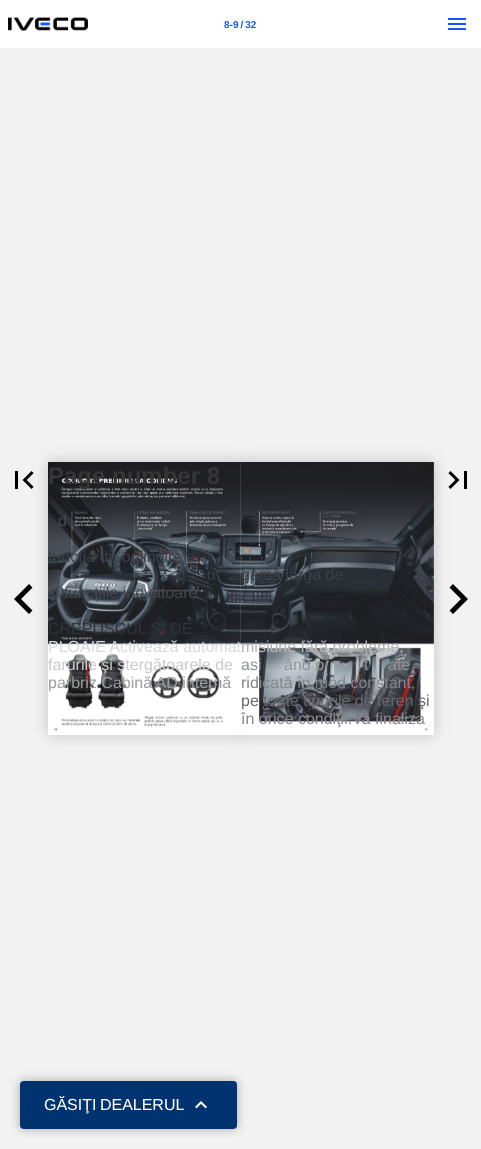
async function draw(canvas) {
	canvas.width = 481;
	canvas.height = 1149;
	const c = canvas.getContext('2d');
	c.miterLimit = 4;
	c.fontKerning = 'normal';
	async function loadImage(src) {
		const img = new Image();
		img.src = src;
		await img.decode();
		return img;
	}

	c.fillStyle = '#f2f2f2';
	c.fillRect(0, 0, 481, 1149);
	c.fillStyle = '#fff';
	c.fillRect(0, 0, 481, 48);
	c.drawImage(await loadImage('img1.png'), 8, 17, 80, 14);
	c.font = 'bold 10px Liberation Sans';
	c.fillStyle = '#1554ff';
	c.fillText('8-9 / 32', 224, 28);
	c.drawImage(await loadImage('img2.png'), 448, 18, 18, 12);
	c.fillStyle = '#00000033';
	c.filter = 'blur(8px)';
	c.beginPath();
	c.rect(48, 462, 193, 273);
	c.fill();
	c.filter = 'none';
	c.drawImage(await loadImage('img3.png'), 15, 471, 19, 18);
	c.fillStyle = '#000';
	c.beginPath();
	c.moveTo(32.5, 587.5);
	c.lineTo(29, 584);
	c.lineTo(14, 599);
	c.lineTo(29, 614);
	c.lineTo(32.5, 610.5);
	c.lineTo(21, 599);
	c.closePath();
	c.fill();
	c.fillStyle = '#00000033';
	c.filter = 'blur(8px)';
	c.beginPath();
	c.rect(241, 462, 193, 273);
	c.fill();
	c.filter = 'none';
	c.fillStyle = '#fff';
	c.fillRect(48, 462, 386, 273);
	c.drawImage(await loadImage('img4.png'), 48, 462, 193, 270);
	c.drawImage(await loadImage('img5.png'), 241, 462, 193, 269);
	c.font = 'bold 24px Liberation Sans';
	c.fillStyle = '#363639';
	c.fillText('Page number 8', 48, 484);
	c.font = '16px Liberation Sans';
	c.fillStyle = '#46484e';
	c.fillText('d', 58, 526);
	c.fillStyle = '#3c4148';
	c.fillText('funcţia de oglindire a', 48, 562);
	c.fillText('u', 207, 580);
	c.fillStyle = '#46484e';
	c.fillText('şi funcţiile inovatoare', 48, 598);
	c.fillStyle = '#30343a';
	c.fillText('CREPUSCUL ŞI DE', 48, 634);
	c.fillStyle = '#d9dadb';
	c.fillText('PLOAIE Activează automat', 48, 652);
	c.fillStyle = '#cbcacc';
	c.fillText('farurile şi ştergătoarele de', 48, 670);
	c.fillStyle = '#9d9c9e';
	c.fillText('parbriz Cabină AD internă', 48, 688);
	c.fillStyle = '#3c4148';
	c.fillText('gamă largă de', 241, 580);
	c.fillStyle = '#b2b5b7';
	c.fillText('misiune fără probleme,', 241, 652);
	c.fillStyle = '#8e949a';
	for (const [text, x, y] of [
		['asi', 241, 670],
		['ând p', 284, 670],
		['t', 364, 670],
		['ate', 388, 670],
	]) {
		c.fillText(text, x, y);
	}
	c.fillStyle = '#84858b';
	c.fillText('ridicată în mod constant,', 241, 688);
	c.fillStyle = '#69686e';
	c.fillText('pe toate tipurile de teren şi', 241, 706);
	c.fillStyle = '#8a898d';
	c.fillText('în orice condiţii.Va finaliza', 241, 724);
	c.drawImage(await loadImage('img6.png'), 448, 471, 19, 18);
	c.fillStyle = '#000';
	c.beginPath();
	c.moveTo(453, 584);
	c.lineTo(449.5, 587.5);
	c.lineTo(461, 599);
	c.lineTo(449.5, 610.5);
	c.lineTo(453, 614);
	c.lineTo(468, 599);
	c.closePath();
	c.fill();
	c.fillStyle = '#00000040';
	c.filter = 'blur(5px)';
	c.beginPath();
	c.roundRect(19, 1080, 219, 50, 5);
	c.fill();
	c.filter = 'none';
	c.fillStyle = '#00336f';
	c.beginPath();
	c.roundRect(20, 1081, 217, 48, 4);
	c.fill();
	c.wordSpacing = '-1px';
	c.fillStyle = '#fff';
	c.fillText('GĂSIŢI DEALERUL', 44, 1110);
	c.drawImage(await loadImage('img7.png'), 195, 1101, 12, 8);
}

draw(document.querySelector('canvas'));
